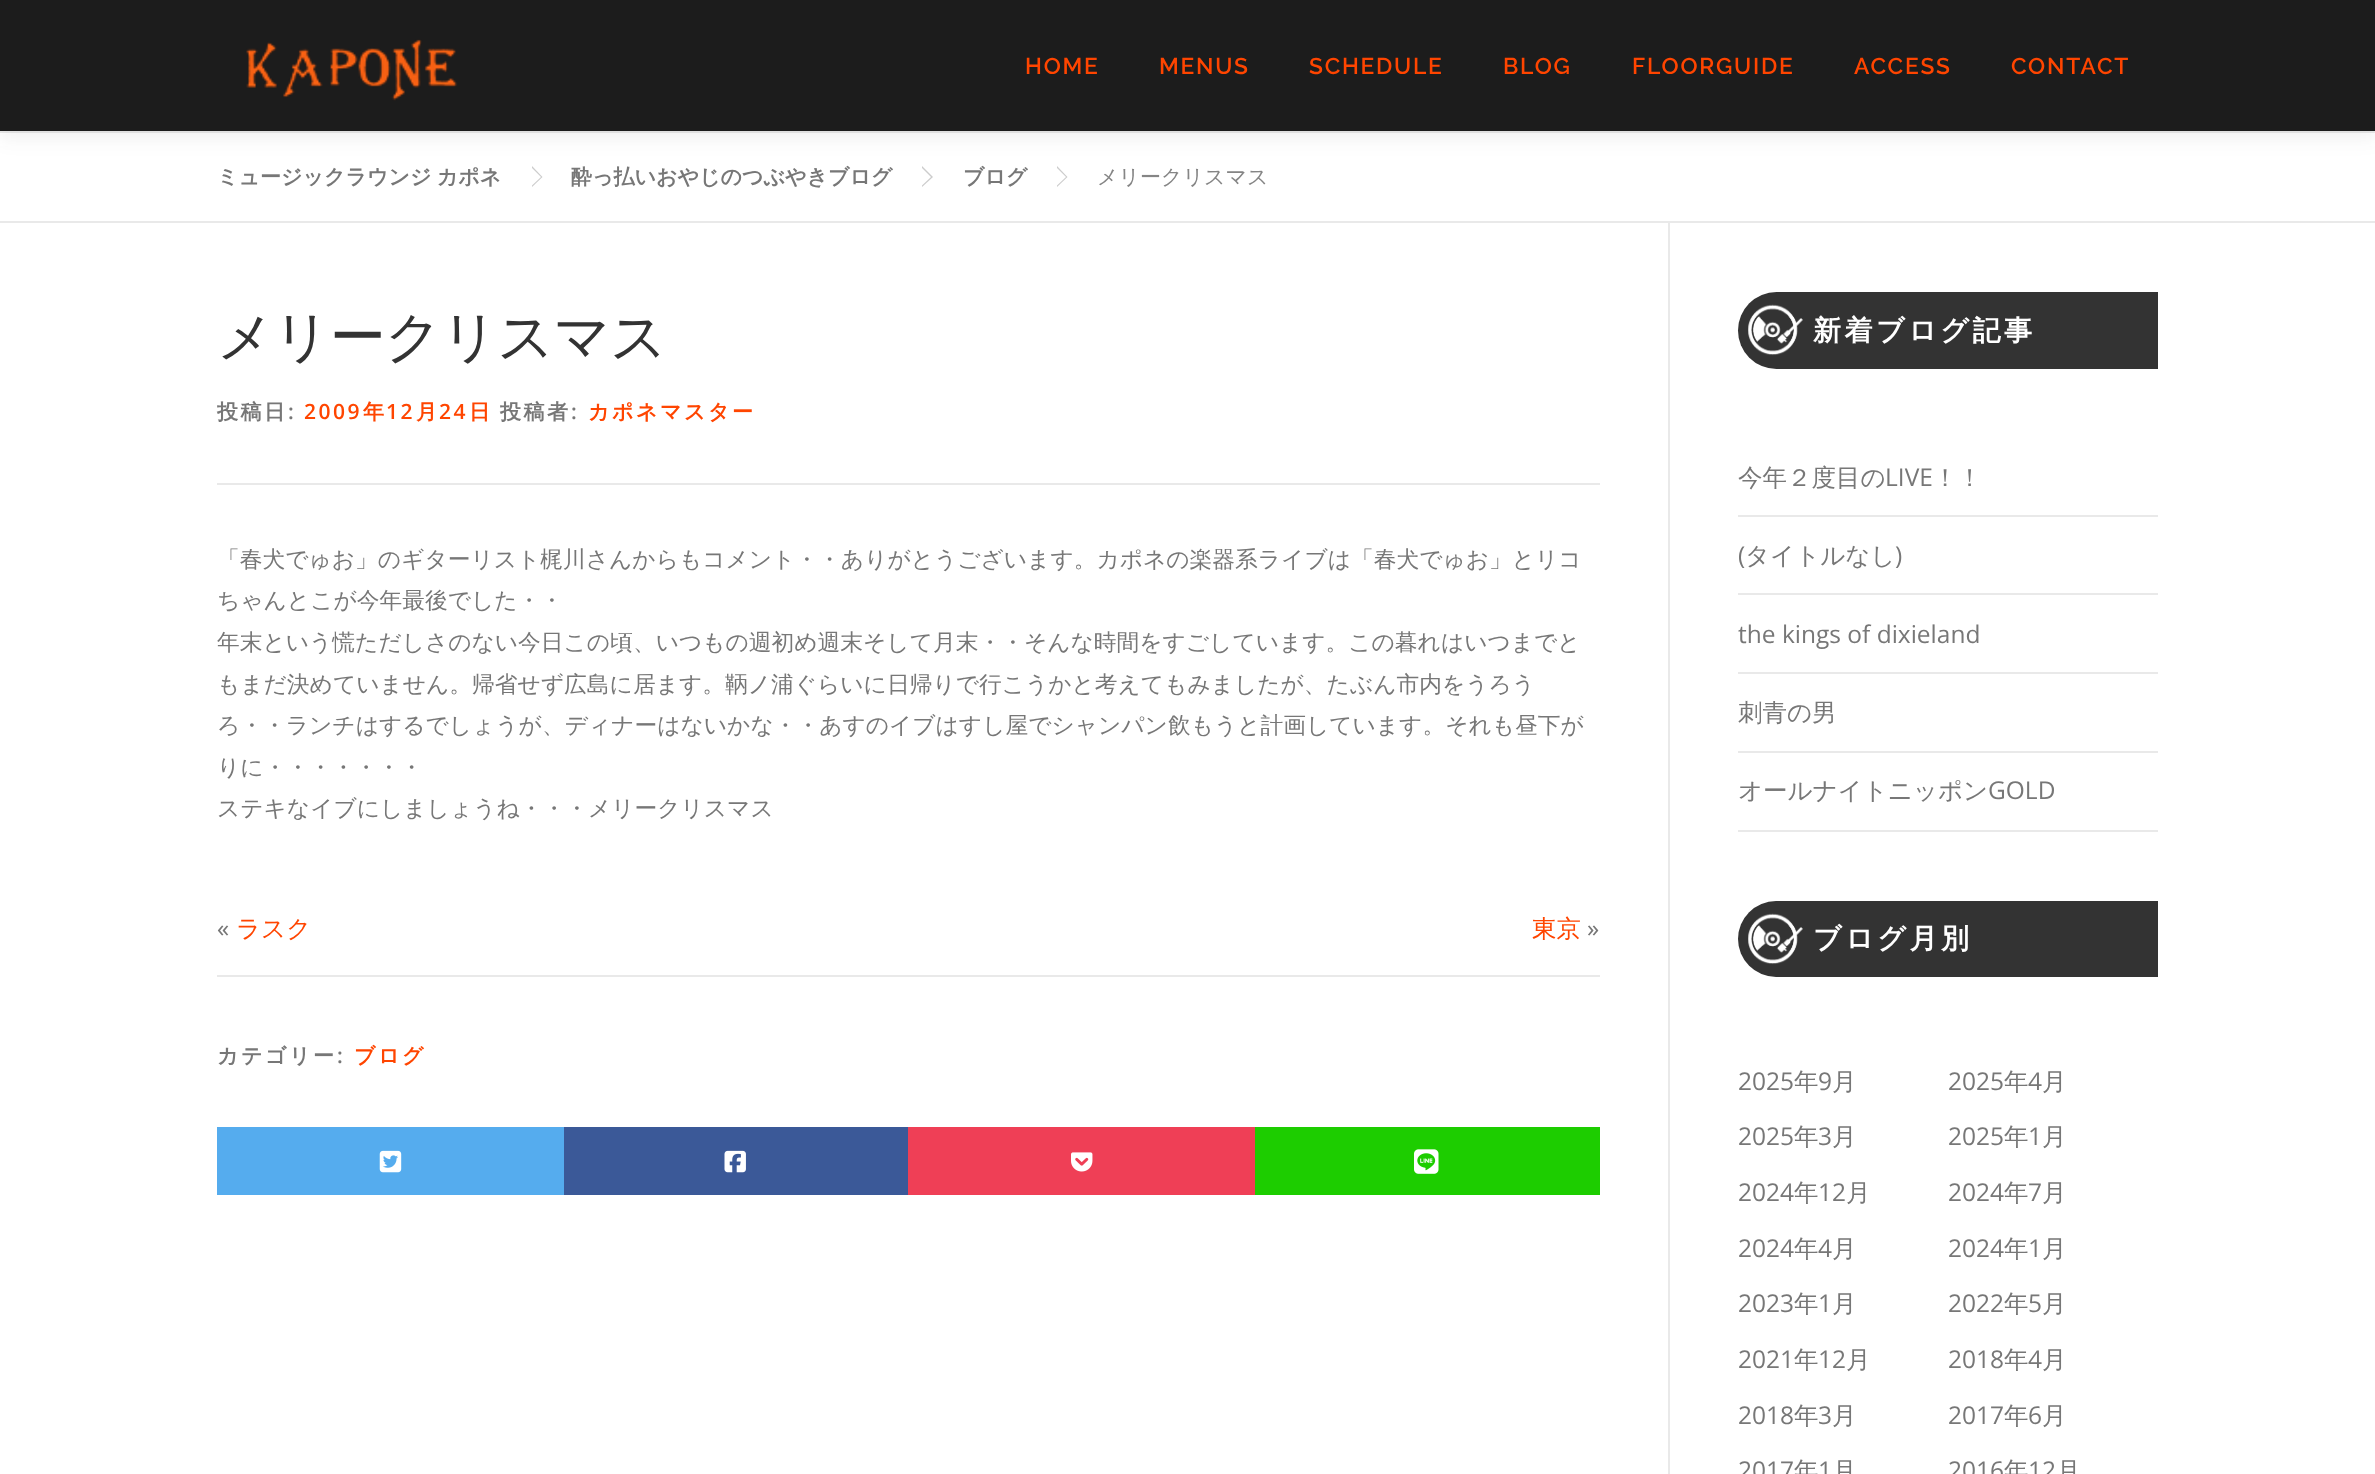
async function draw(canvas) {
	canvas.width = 2375;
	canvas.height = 1474;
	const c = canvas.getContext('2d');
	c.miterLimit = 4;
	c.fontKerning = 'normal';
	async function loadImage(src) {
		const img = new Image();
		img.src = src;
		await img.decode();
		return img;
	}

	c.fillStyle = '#fff';
	c.fillRect(0, 0, 2375, 1474);
	c.fillStyle = '#e9e9e9';
	c.fillRect(0, 131, 2375, 2);
	c.fillStyle = '#ccc';
	c.beginPath();
	c.moveTo(532, 187);
	c.lineTo(532, 166);
	c.lineTo(542.5, 177);
	c.closePath();
	c.fill();
	c.beginPath();
	c.moveTo(922, 187);
	c.lineTo(922, 166);
	c.lineTo(933, 177);
	c.closePath();
	c.fill();
	c.beginPath();
	c.moveTo(1057, 187);
	c.lineTo(1057, 166);
	c.lineTo(1067.5, 177);
	c.closePath();
	c.fill();
	c.fillStyle = '#3232320f';
	c.filter = 'blur(9px)';
	c.beginPath();
	c.rect(0, 9, 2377, 131);
	c.fill();
	c.filter = 'none';
	c.fillStyle = '#1c1c1c';
	c.fillRect(0, 0, 2375, 131);
	c.drawImage(await loadImage('img1.png'), 246, 39, 212, 62);
	c.letterSpacing = '1.75px';
	c.font = '600 22.75px Raleway';
	c.fillStyle = '#ff4500';
	for (const [text, x, y] of [
		['HOME', 1025, 74],
		['MENUS', 1159, 74],
		['SCHEDULE', 1309, 74],
		['BLOG', 1503, 74],
		['FLOORGUIDE', 1632, 74],
		['ACCESS', 1854, 74],
		['CONTACT', 2011, 74],
	]) {
		c.fillText(text, x, y);
	}
	c.fillStyle = '#e9e9e9';
	c.fillRect(0, 221, 2375, 2);
	c.letterSpacing = '0px';
	c.wordSpacing = '-1px';
	c.font = 'bold 21px WenQuanYi Zen Hei';
	c.fillStyle = '#777';
	c.fillText('ミュージックラウンジ カポネ', 217, 184);
	c.fillStyle = '#fff';
	c.beginPath();
	c.moveTo(532, 185.5);
	c.lineTo(532, 168);
	c.lineTo(541, 177);
	c.closePath();
	c.fill();
	c.wordSpacing = '0px';
	c.fillStyle = '#777';
	c.fillText('酔っ払いおやじのつぶやきブログ', 571, 184);
	c.fillStyle = '#fff';
	c.beginPath();
	c.moveTo(922, 185.5);
	c.lineTo(922, 168);
	c.lineTo(931, 177);
	c.closePath();
	c.fill();
	c.fillStyle = '#777';
	c.fillText('ブログ', 963, 184);
	c.fillStyle = '#fff';
	c.beginPath();
	c.moveTo(1057, 185.5);
	c.lineTo(1057, 168);
	c.lineTo(1066, 177);
	c.closePath();
	c.fill();
	c.font = '500 21px WenQuanYi Zen Hei';
	c.fillStyle = '#858585';
	c.fillText('メリークリスマス', 1097, 184);
	c.letterSpacing = '-1px';
	c.font = '500 56px WenQuanYi Zen Hei';
	c.fillStyle = '#333';
	c.fillText('メリークリスマス', 217, 356);
	c.fillStyle = '#e9e9e9';
	c.fillRect(217, 483, 1383, 2);
	c.letterSpacing = '2.5px';
	c.font = 'bold 21px WenQuanYi Zen Hei';
	c.fillStyle = '#777';
	c.fillText('投稿日', 217, 419);
	c.font = '600 21px Open Sans';
	c.fillText(':', 288, 419);
	c.fillStyle = '#ff4500';
	c.fillText('2009', 304, 419);
	c.font = 'bold 21px WenQuanYi Zen Hei';
	c.fillText('年', 363, 419);
	c.font = '600 21px Open Sans';
	c.fillText('12', 386, 419);
	c.font = 'bold 21px WenQuanYi Zen Hei';
	c.fillText('月', 416, 419);
	c.font = '600 21px Open Sans';
	c.fillText('24', 439, 419);
	c.font = 'bold 21px WenQuanYi Zen Hei';
	c.fillText('日', 469, 419);
	c.fillStyle = '#777';
	c.fillText('投稿者', 500, 419);
	c.font = '600 21px Open Sans';
	c.fillText(':', 571, 419);
	c.font = 'bold 21px WenQuanYi Zen Hei';
	c.fillStyle = '#ff4500';
	c.fillText('カポネマスター', 588, 419);
	c.letterSpacing = '0px';
	c.font = '500 22.75px WenQuanYi Zen Hei';
	c.fillStyle = '#777';
	for (const [text, x, y] of [
		['「春犬でゅお」のギターリスト梶川さんからもコメント・・ありがとうございます。カポネの楽器系ライブは「春犬でゅお」とリコ', 217, 567],
		['ちゃんとこが今年最後でした・・', 217, 608],
		['年末という慌ただしさのない今日この頃、いつもの週初め週末そして月末・・そんな時間をすごしています。この暮れはいつまでと', 217, 650],
		['もまだ決めていません。帰省せず広島に居ます。鞆ノ浦ぐらいに日帰りで行こうかと考えてもみましたが、たぶん市内をうろう', 217, 692],
		['ろ・・ランチはするでしょうが、ディナーはないかな・・あすのイブはすし屋でシャンパン飲もうと計画しています。それも昼下が', 217, 733],
		['りに・・・・・・・', 217, 775],
		['ステキなイブにしましょうね・・・メリークリスマス', 217, 816],
	]) {
		c.fillText(text, x, y);
	}
	c.font = '24.5px Open Sans';
	c.fillText('«', 217, 937);
	c.font = '500 24.5px WenQuanYi Zen Hei';
	c.fillStyle = '#ff4500';
	c.fillText('ラスク', 236, 937);
	c.fillText('東京', 1532, 937);
	c.font = '24.5px Open Sans';
	c.fillStyle = '#777';
	c.fillText('»', 1587, 937);
	c.fillStyle = '#e9e9e9';
	c.fillRect(217, 975, 1383, 2);
	c.letterSpacing = '2.5px';
	c.font = 'bold 21px WenQuanYi Zen Hei';
	c.fillStyle = '#777';
	c.fillText('カテゴリー', 217, 1063);
	c.font = '600 21px Open Sans';
	c.fillText(':', 337, 1063);
	c.font = 'bold 21px WenQuanYi Zen Hei';
	c.fillStyle = '#ff4500';
	c.fillText('ブログ', 354, 1063);
	c.fillStyle = '#55acee';
	c.fillRect(217, 1127, 347, 68);
	c.drawImage(await loadImage('img2.png'), 379, 1150, 23, 23);
	c.fillStyle = '#3b5998';
	c.fillRect(564, 1127, 344, 68);
	c.drawImage(await loadImage('img3.png'), 724, 1150, 22, 23);
	c.fillStyle = '#ef3f56';
	c.fillRect(908, 1127, 347, 68);
	c.drawImage(await loadImage('img4.png'), 1071, 1152, 22, 20);
	c.fillStyle = '#1dcd00';
	c.fillRect(1255, 1127, 345, 68);
	c.drawImage(await loadImage('img5.png'), 1414, 1149, 25, 25);
	c.fillStyle = '#e9e9e9';
	c.fillRect(1668, 222, 2, 1252);
	c.fillStyle = '#333';
	c.beginPath();
	c.roundRect(1738, 292, 420, 77, [38.5, 0, 0, 38.5]);
	c.fill();
	c.drawImage(await loadImage('img6.png'), 1748, 304, 55, 52);
	c.letterSpacing = '3.5px';
	c.font = 'bold 28px WenQuanYi Zen Hei';
	c.fillStyle = '#fff';
	c.fillText('新着ブログ記事', 1813, 340);
	c.fillStyle = '#e9e9e9';
	c.fillRect(1738, 515, 420, 2);
	c.letterSpacing = '0px';
	c.font = '500 24.5px WenQuanYi Zen Hei';
	c.fillStyle = '#777';
	c.fillText('今年２度目の', 1738, 486);
	c.font = '24.5px Open Sans';
	c.fillText('LIVE', 1885, 486);
	c.font = '500 24.5px WenQuanYi Zen Hei';
	c.fillText('！！', 1933, 486);
	c.fillStyle = '#e9e9e9';
	c.fillRect(1738, 593, 420, 2);
	c.font = '24.5px Open Sans';
	c.fillStyle = '#777';
	c.fillText('(', 1738, 564);
	c.font = '500 24.5px WenQuanYi Zen Hei';
	c.fillText('タイトルなし', 1745, 564);
	c.font = '24.5px Open Sans';
	c.fillText(')', 1895, 564);
	c.fillStyle = '#e9e9e9';
	c.fillRect(1738, 672, 420, 2);
	c.fillStyle = '#777';
	c.fillText('the kings of dixieland', 1738, 643);
	c.fillStyle = '#e9e9e9';
	c.fillRect(1738, 751, 420, 2);
	c.font = '500 24.5px WenQuanYi Zen Hei';
	c.fillStyle = '#777';
	c.fillText('刺青の男', 1738, 721);
	c.fillStyle = '#e9e9e9';
	c.fillRect(1738, 830, 420, 2);
	c.fillStyle = '#777';
	c.fillText('オールナイトニッポン', 1738, 799);
	c.font = '24.5px Open Sans';
	c.fillText('GOLD', 1988, 799);
	c.fillStyle = '#333';
	c.beginPath();
	c.roundRect(1738, 901, 420, 76, [38, 0, 0, 38]);
	c.fill();
	c.drawImage(await loadImage('img7.png'), 1748, 913, 55, 52);
	c.letterSpacing = '3.5px';
	c.font = 'bold 28px WenQuanYi Zen Hei';
	c.fillStyle = '#fff';
	c.fillText('ブログ月別', 1813, 948);
	c.letterSpacing = '0px';
	c.font = '24.5px Open Sans';
	c.fillStyle = '#777';
	c.fillText('2025', 1738, 1090);
	c.font = '500 24.5px WenQuanYi Zen Hei';
	c.fillText('年', 1794, 1090);
	c.font = '24.5px Open Sans';
	c.fillText('9', 1818, 1090);
	c.font = '500 24.5px WenQuanYi Zen Hei';
	c.fillText('月', 1832, 1090);
	c.font = '24.5px Open Sans';
	c.fillText('2025', 1948, 1090);
	c.font = '500 24.5px WenQuanYi Zen Hei';
	c.fillText('年', 2004, 1090);
	c.font = '24.5px Open Sans';
	c.fillText('4', 2028, 1090);
	c.font = '500 24.5px WenQuanYi Zen Hei';
	c.fillText('月', 2042, 1090);
	c.font = '24.5px Open Sans';
	c.fillText('2025', 1738, 1145);
	c.font = '500 24.5px WenQuanYi Zen Hei';
	c.fillText('年', 1794, 1145);
	c.font = '24.5px Open Sans';
	c.fillText('3', 1818, 1145);
	c.font = '500 24.5px WenQuanYi Zen Hei';
	c.fillText('月', 1832, 1145);
	c.font = '24.5px Open Sans';
	c.fillText('2025', 1948, 1145);
	c.font = '500 24.5px WenQuanYi Zen Hei';
	c.fillText('年', 2004, 1145);
	c.font = '24.5px Open Sans';
	c.fillText('1', 2028, 1145);
	c.font = '500 24.5px WenQuanYi Zen Hei';
	c.fillText('月', 2042, 1145);
	c.font = '24.5px Open Sans';
	c.fillText('2024', 1738, 1201);
	c.font = '500 24.5px WenQuanYi Zen Hei';
	c.fillText('年', 1794, 1201);
	c.font = '24.5px Open Sans';
	c.fillText('12', 1818, 1201);
	c.font = '500 24.5px WenQuanYi Zen Hei';
	c.fillText('月', 1846, 1201);
	c.font = '24.5px Open Sans';
	c.fillText('2024', 1948, 1201);
	c.font = '500 24.5px WenQuanYi Zen Hei';
	c.fillText('年', 2004, 1201);
	c.font = '24.5px Open Sans';
	c.fillText('7', 2028, 1201);
	c.font = '500 24.5px WenQuanYi Zen Hei';
	c.fillText('月', 2042, 1201);
	c.font = '24.5px Open Sans';
	c.fillText('2024', 1738, 1257);
	c.font = '500 24.5px WenQuanYi Zen Hei';
	c.fillText('年', 1794, 1257);
	c.font = '24.5px Open Sans';
	c.fillText('4', 1818, 1257);
	c.font = '500 24.5px WenQuanYi Zen Hei';
	c.fillText('月', 1832, 1257);
	c.font = '24.5px Open Sans';
	c.fillText('2024', 1948, 1257);
	c.font = '500 24.5px WenQuanYi Zen Hei';
	c.fillText('年', 2004, 1257);
	c.font = '24.5px Open Sans';
	c.fillText('1', 2028, 1257);
	c.font = '500 24.5px WenQuanYi Zen Hei';
	c.fillText('月', 2042, 1257);
	c.font = '24.5px Open Sans';
	c.fillText('2023', 1738, 1312);
	c.font = '500 24.5px WenQuanYi Zen Hei';
	c.fillText('年', 1794, 1312);
	c.font = '24.5px Open Sans';
	c.fillText('1', 1818, 1312);
	c.font = '500 24.5px WenQuanYi Zen Hei';
	c.fillText('月', 1832, 1312);
	c.font = '24.5px Open Sans';
	c.fillText('2022', 1948, 1312);
	c.font = '500 24.5px WenQuanYi Zen Hei';
	c.fillText('年', 2004, 1312);
	c.font = '24.5px Open Sans';
	c.fillText('5', 2028, 1312);
	c.font = '500 24.5px WenQuanYi Zen Hei';
	c.fillText('月', 2042, 1312);
	c.font = '24.5px Open Sans';
	c.fillText('2021', 1738, 1368);
	c.font = '500 24.5px WenQuanYi Zen Hei';
	c.fillText('年', 1794, 1368);
	c.font = '24.5px Open Sans';
	c.fillText('12', 1818, 1368);
	c.font = '500 24.5px WenQuanYi Zen Hei';
	c.fillText('月', 1846, 1368);
	c.font = '24.5px Open Sans';
	c.fillText('2018', 1948, 1368);
	c.font = '500 24.5px WenQuanYi Zen Hei';
	c.fillText('年', 2004, 1368);
	c.font = '24.5px Open Sans';
	c.fillText('4', 2028, 1368);
	c.font = '500 24.5px WenQuanYi Zen Hei';
	c.fillText('月', 2042, 1368);
	c.font = '24.5px Open Sans';
	c.fillText('2018', 1738, 1424);
	c.font = '500 24.5px WenQuanYi Zen Hei';
	c.fillText('年', 1794, 1424);
	c.font = '24.5px Open Sans';
	c.fillText('3', 1818, 1424);
	c.font = '500 24.5px WenQuanYi Zen Hei';
	c.fillText('月', 1832, 1424);
	c.font = '24.5px Open Sans';
	c.fillText('2017', 1948, 1424);
	c.font = '500 24.5px WenQuanYi Zen Hei';
	c.fillText('年', 2004, 1424);
	c.font = '24.5px Open Sans';
	c.fillText('6', 2028, 1424);
	c.font = '500 24.5px WenQuanYi Zen Hei';
	c.fillText('月', 2042, 1424);
	c.font = '24.5px Open Sans';
	c.fillText('2017', 1738, 1479);
	c.font = '500 24.5px WenQuanYi Zen Hei';
	c.fillText('年', 1794, 1479);
	c.font = '24.5px Open Sans';
	c.fillText('1', 1818, 1479);
	c.font = '500 24.5px WenQuanYi Zen Hei';
	c.fillText('月', 1832, 1479);
	c.font = '24.5px Open Sans';
	c.fillText('2016', 1948, 1479);
	c.font = '500 24.5px WenQuanYi Zen Hei';
	c.fillText('年', 2004, 1479);
	c.font = '24.5px Open Sans';
	c.fillText('12', 2028, 1479);
	c.font = '500 24.5px WenQuanYi Zen Hei';
	c.fillText('月', 2056, 1479);
}

draw(document.querySelector('canvas'));
